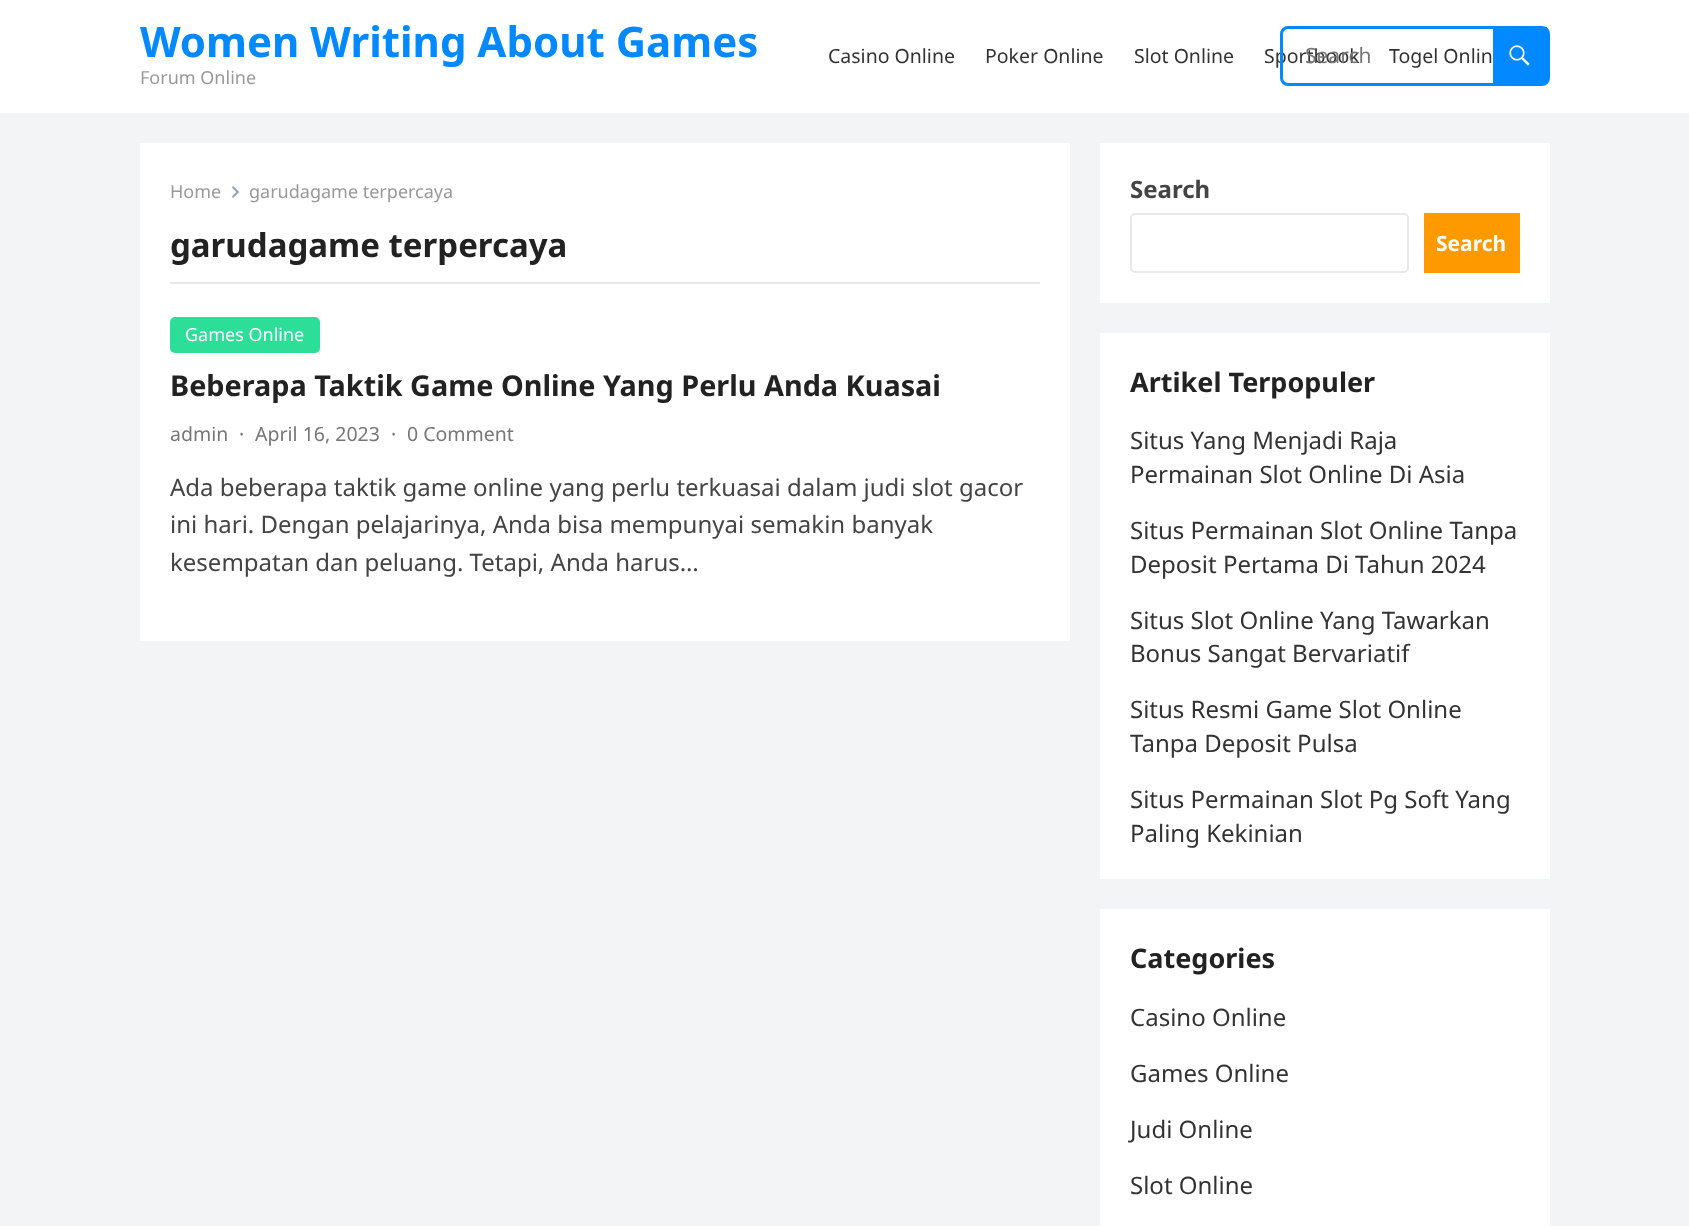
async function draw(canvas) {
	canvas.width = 1689;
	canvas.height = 1226;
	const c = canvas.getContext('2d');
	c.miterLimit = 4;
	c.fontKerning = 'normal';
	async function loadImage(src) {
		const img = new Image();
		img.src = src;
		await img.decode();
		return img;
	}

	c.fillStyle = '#f3f4f5';
	c.fillRect(0, 0, 1689, 1226);
	c.fillStyle = '#fff';
	c.fillRect(0, 0, 1689, 113);
	c.font = 'bold 42px Noto Sans';
	c.fillStyle = '#0389ff';
	c.fillText('Women Writing About Games', 140, 57);
	c.font = '18px Noto Sans';
	c.fillStyle = '#999';
	c.fillText('Forum Online', 140, 84);
	c.font = '19.5px Noto Sans';
	c.fillStyle = '#333';
	c.fillText('Sportbook', 1264, 63);
	c.beginPath();
	c.roundRect(1281.5, 27.5, 267, 57, 6.5);
	c.strokeStyle = '#0389ff';
	c.lineWidth = 3;
	c.stroke();
	c.font = '21px Noto Sans';
	c.fillStyle = '#777';
	c.fillText('Search', 1305, 63);
	c.fillStyle = '#0389ff';
	c.fillRect(1493, 27, 54, 56);
	c.drawImage(await loadImage('img1.png'), 1509, 45, 21, 21);
	c.font = '19.5px Noto Sans';
	c.fillStyle = '#333';
	for (const [text, x, y] of [
		['Casino Online', 828, 63],
		['Poker Online', 985, 63],
		['Slot Online', 1134, 63],
		['Togel Onlin', 1389, 63],
	]) {
		c.fillText(text, x, y);
	}
	c.fillStyle = '#fff';
	c.fillRect(140, 143, 930, 498);
	c.fillStyle = '#e9e9e9';
	c.fillRect(170, 282, 870, 2);
	c.font = '18px Noto Sans';
	c.fillStyle = '#999';
	c.fillText('Home', 170, 198);
	c.drawImage(await loadImage('img2.png'), 231, 186, 9, 12);
	c.fillText('garudagame terpercaya', 249, 198);
	c.font = 'bold 33px Noto Sans';
	c.fillStyle = '#222';
	c.fillText('garudagame terpercaya', 170, 257);
	c.fillStyle = '#2dde98';
	c.beginPath();
	c.roundRect(170, 317, 150, 36, 5);
	c.fill();
	c.font = '18px Noto Sans';
	c.fillStyle = '#fff';
	c.fillText('Games Online', 185, 341);
	c.font = 'bold 28.8px Noto Sans';
	c.fillStyle = '#222';
	c.fillText('Beberapa Taktik Game Online Yang Perlu Anda Kuasai', 170, 396);
	c.font = '19.5px Noto Sans';
	c.fillStyle = '#777';
	for (const [text, x, y] of [
		['admin', 170, 441],
		['·', 239, 441],
		['April 16, 2023', 255, 441],
		['·', 391, 441],
		['0 Comment', 407, 441],
	]) {
		c.fillText(text, x, y);
	}
	c.font = '24px Noto Sans';
	c.fillStyle = '#444';
	for (const [text, x, y] of [
		['Ada beberapa taktik game online yang perlu terkuasai dalam judi slot gacor', 170, 496],
		['ini hari. Dengan pelajarinya, Anda bisa mempunyai semakin banyak', 170, 533],
		['kesempatan dan peluang. Tetapi, Anda harus…', 170, 571],
	]) {
		c.fillText(text, x, y);
	}
	c.fillStyle = '#fff';
	c.fillRect(1100, 143, 450, 160);
	c.font = 'bold 24px Noto Sans';
	c.fillStyle = '#444';
	c.fillText('Search', 1130, 198);
	c.beginPath();
	c.roundRect(1131, 214, 277, 58, 4);
	c.strokeStyle = '#e9e9e9';
	c.lineWidth = 2;
	c.stroke();
	c.fillStyle = '#f90';
	c.fillRect(1424, 213, 96, 60);
	c.font = 'bold 21px Noto Sans';
	c.fillStyle = '#fff';
	c.fillText('Search', 1436, 251);
	c.fillRect(1100, 333, 450, 546);
	c.font = 'bold 27px Noto Sans';
	c.fillStyle = '#222';
	c.fillText('Artikel Terpopuler', 1130, 392);
	c.font = '24px Noto Sans';
	c.fillStyle = '#333';
	for (const [text, x, y] of [
		['Situs Yang Menjadi Raja', 1130, 449],
		['Permainan Slot Online Di Asia', 1130, 483],
		['Situs Permainan Slot Online Tanpa', 1130, 539],
		['Deposit Pertama Di Tahun 2024', 1130, 573],
		['Situs Slot Online Yang Tawarkan', 1130, 629],
		['Bonus Sangat Bervariatif', 1130, 662],
		['Situs Resmi Game Slot Online', 1130, 718],
		['Tanpa Deposit Pulsa', 1130, 752],
		['Situs Permainan Slot Pg Soft Yang', 1130, 808],
		['Paling Kekinian', 1130, 842],
	]) {
		c.fillText(text, x, y);
	}
	c.fillStyle = '#fff';
	c.fillRect(1100, 909, 450, 317);
	c.font = 'bold 27px Noto Sans';
	c.fillStyle = '#222';
	c.fillText('Categories', 1130, 968);
	c.font = '24px Noto Sans';
	c.fillStyle = '#333';
	for (const [text, x, y] of [
		['Casino Online', 1130, 1026],
		['Games Online', 1130, 1082],
		['Judi Online', 1130, 1138],
		['Slot Online', 1130, 1194],
	]) {
		c.fillText(text, x, y);
	}
}

draw(document.querySelector('canvas'));
